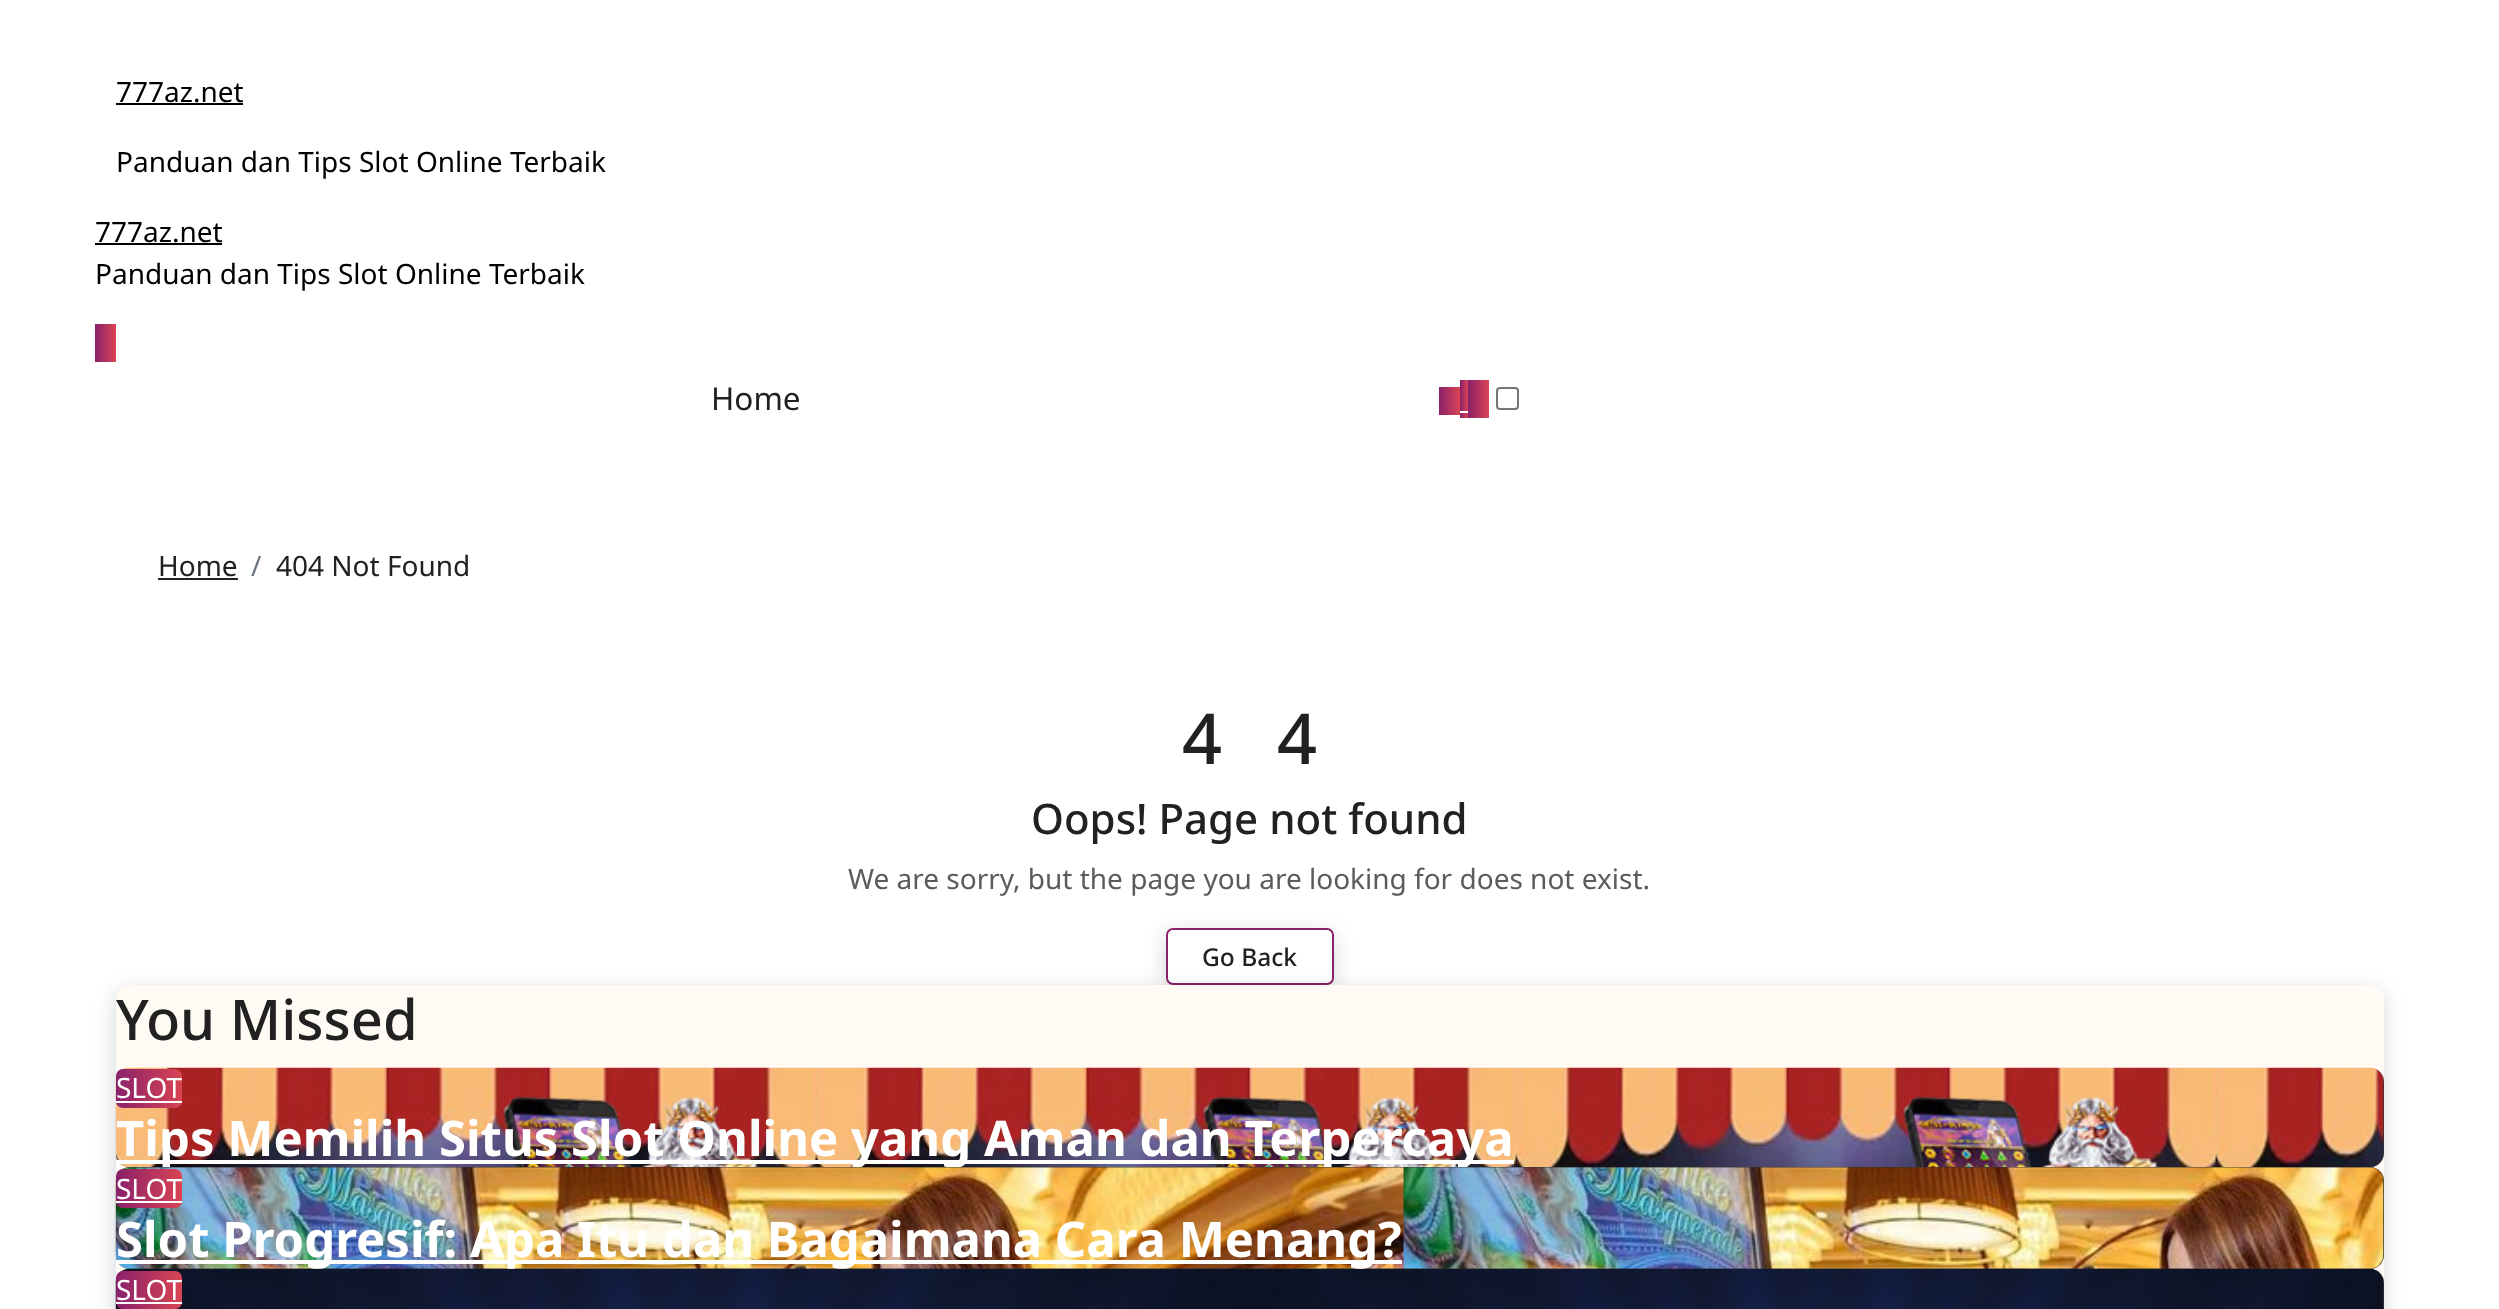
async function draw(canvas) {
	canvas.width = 2499;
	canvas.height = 1309;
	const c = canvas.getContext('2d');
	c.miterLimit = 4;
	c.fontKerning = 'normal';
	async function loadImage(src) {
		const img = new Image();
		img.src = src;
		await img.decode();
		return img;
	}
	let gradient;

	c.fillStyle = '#fff';
	c.fillRect(0, 0, 2499, 1309);
	c.font = '28px Noto Sans';
	c.fillStyle = '#000';
	c.fillText('777az.net', 116, 102);
	c.fillRect(116, 103, 127, 2);
	c.fillText('Panduan dan Tips Slot Online Terbaik', 116, 172);
	c.fillText('777az.net', 95, 242);
	c.fillRect(95, 243, 127, 2);
	c.fillText('Panduan dan Tips Slot Online Terbaik', 95, 284);
	gradient = c.createLinearGradient(95, 343, 116, 343);
	gradient.addColorStop(0, '#89216b');
	gradient.addColorStop(1, '#da4453');
	c.fillStyle = gradient;
	c.fillRect(95, 324, 21, 38);
	c.font = '31.5px Noto Sans';
	c.fillStyle = '#212121';
	c.fillText('Home', 711, 410);
	gradient = c.createLinearGradient(1439, 401, 1460, 401);
	gradient.addColorStop(0, '#89216b');
	gradient.addColorStop(1, '#da4453');
	c.fillStyle = gradient;
	c.fillRect(1439, 387, 21, 28);
	gradient = c.createLinearGradient(1460, 399, 1468, 399);
	gradient.addColorStop(0, '#89216b');
	gradient.addColorStop(1, '#da4453');
	c.fillStyle = gradient;
	c.fillRect(1460, 380, 8, 38);
	gradient = c.createLinearGradient(1468, 399, 1489, 399);
	gradient.addColorStop(0, '#89216b');
	gradient.addColorStop(1, '#da4453');
	c.fillStyle = gradient;
	c.fillRect(1468, 380, 21, 38);
	c.beginPath();
	c.roundRect(1497, 388, 21, 21, 3);
	c.strokeStyle = '#767676';
	c.lineWidth = 2;
	c.stroke();
	c.fillStyle = '#fff';
	c.fillRect(1460, 411, 8, 2);
	c.font = '28px Noto Sans';
	c.fillStyle = '#212121';
	c.fillText('Home', 158, 576);
	c.fillRect(158, 578, 80, 2);
	c.fillStyle = '#6c757d';
	c.fillText('/', 251, 576);
	c.fillStyle = '#212121';
	c.fillText('404 Not Found', 276, 576);
	c.font = '500 70px Noto Sans';
	c.fillText('4', 1182, 764);
	c.fillText('4', 1277, 764);
	c.font = '500 42px Noto Sans';
	c.fillText('Oops! Page not found', 1031, 834);
	c.font = '28px Noto Sans';
	c.fillStyle = '#5b5b5b';
	c.fillText('We are sorry, but the page you are looking for does not exist.', 848, 889);
	c.save();
	c.beginPath();
	c.moveTo(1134, 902);
	c.lineTo(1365, 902);
	c.lineTo(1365, 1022);
	c.lineTo(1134, 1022);
	c.closePath();
	c.moveTo(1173, 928);
	c.lineTo(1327, 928);
	c.bezierCurveTo(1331, 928, 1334, 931, 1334, 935);
	c.lineTo(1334, 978);
	c.bezierCurveTo(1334, 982, 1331, 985, 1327, 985);
	c.lineTo(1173, 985);
	c.bezierCurveTo(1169, 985, 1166, 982, 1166, 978);
	c.lineTo(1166, 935);
	c.bezierCurveTo(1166, 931, 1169, 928, 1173, 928);
	c.closePath();
	c.clip('evenodd');
	c.fillStyle = '#070a1933';
	c.filter = 'blur(10.5px)';
	c.beginPath();
	c.roundRect(1167, 935, 165, 54, 5);
	c.fill();
	c.filter = 'none';
	c.restore();
	c.beginPath();
	c.roundRect(1167, 929, 166, 55, 6);
	c.strokeStyle = '#89216b';
	c.stroke();
	c.font = '500 24.5px Noto Sans';
	c.fillStyle = '#212121';
	c.fillText('Go Back', 1202, 966);
	c.fillStyle = '#070a1933';
	c.filter = 'blur(10.5px)';
	c.beginPath();
	c.roundRect(117, 992, 2265, 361, 12);
	c.fill();
	c.filter = 'none';
	c.fillStyle = '#fffaf4';
	c.beginPath();
	c.roundRect(116, 985, 2268, 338, 14);
	c.fill();
	c.font = '500 56px Noto Sans';
	c.fillStyle = '#212121';
	c.fillText('You Missed', 116, 1040);
	c.fillStyle = '#333';
	c.beginPath();
	c.roundRect(116, 1068, 2268, 99, 14);
	c.fill();
	c.drawImage(await loadImage('img1.png'), 115, 1067, 2269, 101);
	gradient = c.createLinearGradient(116, 1089, 182, 1089);
	gradient.addColorStop(0, '#89216b');
	gradient.addColorStop(1, '#da4453');
	c.fillStyle = gradient;
	c.beginPath();
	c.roundRect(116, 1069, 66, 39, 7);
	c.fill();
	c.font = '28px Noto Sans';
	c.fillStyle = '#fff';
	c.fillText('SLOT', 116, 1098);
	c.fillRect(116, 1101, 66, 2);
	c.fillRect(116, 1160, 1398, 4);
	c.save();
	c.beginPath();
	c.rect(116, 1110, 2268, 57);
	c.clip();
	c.font = 'bold 49px Noto Sans';
	c.fillText('Tips Memilih Situs Slot Online yang Aman dan Terpercaya', 116, 1156);
	c.restore();
	c.fillStyle = '#333';
	c.beginPath();
	c.roundRect(116, 1167, 2268, 102, 14);
	c.fill();
	c.drawImage(await loadImage('img2.png'), 115, 1167, 2269, 102);
	gradient = c.createLinearGradient(116, 1188, 182, 1188);
	gradient.addColorStop(0, '#89216b');
	gradient.addColorStop(1, '#da4453');
	c.fillStyle = gradient;
	c.beginPath();
	c.roundRect(116, 1169, 66, 39, 7);
	c.fill();
	c.fillStyle = '#fff';
	c.fillText('SLOT', 116, 1199);
	c.fillRect(116, 1201, 66, 2);
	c.fillRect(116, 1260, 1286, 4);
	c.fillStyle = '#333';
	c.beginPath();
	c.roundRect(116, 1269, 2268, 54, 14);
	c.fill();
	c.drawImage(await loadImage('img3.png'), 115, 1268, 2269, 41);
	c.font = 'bold 49px Noto Sans';
	c.fillStyle = '#fff';
	c.fillText('Slot Progresif: Apa Itu dan Bagaimana Cara Menang?', 116, 1257);
	gradient = c.createLinearGradient(116, 1290, 182, 1290);
	gradient.addColorStop(0, '#89216b');
	gradient.addColorStop(1, '#da4453');
	c.fillStyle = gradient;
	c.beginPath();
	c.roundRect(116, 1271, 66, 38, 7);
	c.fill();
	c.font = '28px Noto Sans';
	c.fillStyle = '#fff';
	c.fillText('SLOT', 116, 1300);
	c.fillRect(116, 1302, 66, 2);
}

draw(document.querySelector('canvas'));
